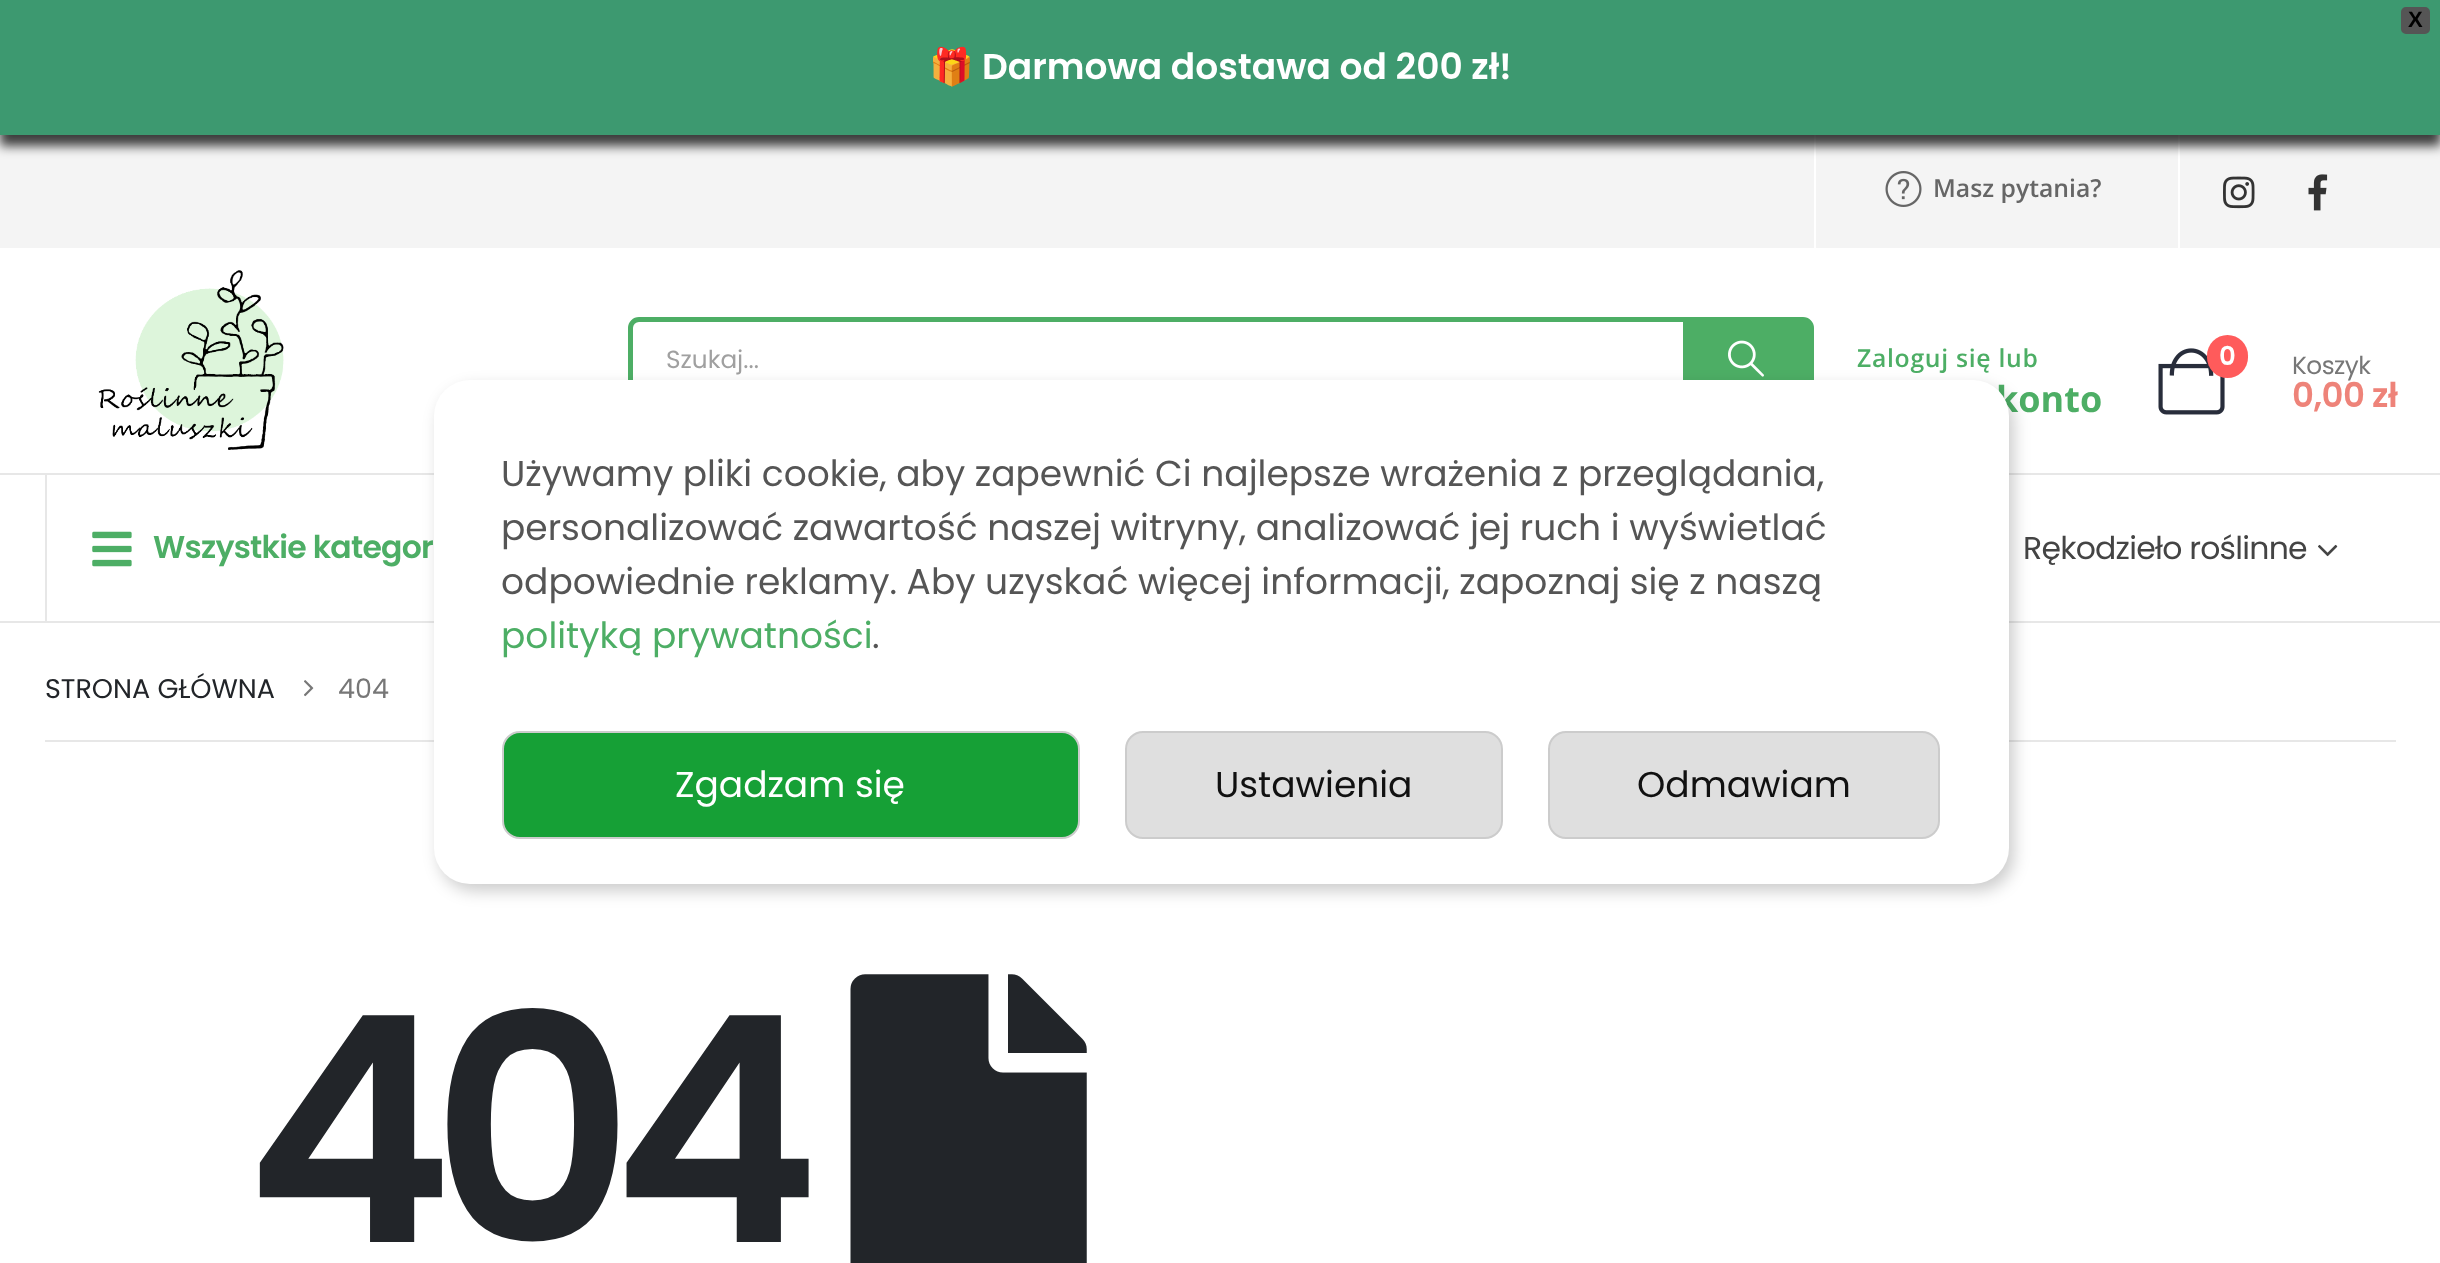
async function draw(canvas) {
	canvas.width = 2440;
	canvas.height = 1263;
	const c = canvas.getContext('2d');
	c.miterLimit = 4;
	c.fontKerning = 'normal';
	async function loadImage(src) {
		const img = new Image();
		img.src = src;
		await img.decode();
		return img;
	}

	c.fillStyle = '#fff';
	c.fillRect(0, 0, 2440, 1263);
	for (const [x, y, w, h, color] of [
		[0, 135, 2440, 113, '#f4f4f4'],
		[1814, 135, 2, 113, '#fff'],
		[2178, 135, 2, 113, '#fff'],
	]) {
		c.fillStyle = color;
		c.fillRect(x, y, w, h);
	}
	c.fillStyle = '#000000bf';
	c.filter = 'blur(5.5px)';
	c.beginPath();
	c.rect(0, 11, 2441, 135);
	c.fill();
	c.filter = 'none';
	c.fillStyle = '#3d9970';
	c.fillRect(0, 0, 2440, 135);
	c.fillStyle = '#555';
	c.beginPath();
	c.roundRect(2402, 8, 27, 25, 4);
	c.fill();
	c.strokeStyle = '#555';
	c.lineWidth = 2;
	c.stroke();
	c.font = 'bold 22px Liberation Sans';
	c.fillStyle = '#000';
	c.fillText('X', 2408, 27);
	c.font = 'bold 36px Noto Color Emoji';
	c.fillStyle = '#fff';
	c.fillText('🎁', 929, 79);
	c.font = '600 36px Poppins';
	c.fillText('Darmowa dostawa od 200 zł!', 982, 79);
	c.drawImage(await loadImage('img1.png'), 1885, 171, 37, 36);
	c.font = '600 24.75px Open Sans';
	c.fillStyle = '#666';
	c.fillText('Masz pytania?', 1933, 197);
	c.drawImage(await loadImage('img2.png'), 2223, 176, 32, 33);
	c.drawImage(await loadImage('img3.png'), 2308, 174, 20, 37);
	c.drawImage(await loadImage('img4.png'), 98, 270, 186, 180);
	c.beginPath();
	c.roundRect(630.5, 319.5, 1181, 81, 8.5);
	c.strokeStyle = '#4dae65';
	c.lineWidth = 5;
	c.stroke();
	c.font = '24.75px Poppins';
	c.fillStyle = '#a0a0a0';
	c.fillText('Szukaj...', 666, 368);
	c.fillStyle = '#4dae65';
	c.fillRect(1683, 322, 126, 58);
	c.drawImage(await loadImage('img5.png'), 1728, 340, 36, 37);
	c.letterSpacing = '0.7px';
	c.font = '600 24.75px Open Sans';
	c.fillText('Zaloguj się lub', 1857, 367);
	c.letterSpacing = '0px';
	c.font = 'bold 36px Open Sans';
	c.fillText('konto', 1996, 412);
	c.drawImage(await loadImage('img6.png'), 2158, 348, 67, 67);
	c.fillStyle = '#ff5b5b';
	c.beginPath();
	c.roundRect(2207, 335, 41, 43, 20.5);
	c.fill();
	c.font = '600 26px Poppins';
	c.fillStyle = '#fff';
	c.fillText('0', 2219, 365);
	c.letterSpacing = '-0.5px';
	c.font = '24.75px Poppins';
	c.fillStyle = '#777';
	c.fillText('Koszyk', 2292, 374);
	c.font = '600 34px Poppins';
	c.fillStyle = '#ee8379';
	c.fillText('0,00 zł', 2292, 407);
	c.fillStyle = '#e7e7e7';
	c.fillRect(0, 473, 2440, 2);
	c.fillRect(45, 475, 2, 146);
	c.drawImage(await loadImage('img7.png'), 92, 531, 40, 36);
	c.letterSpacing = '-0.75px';
	c.font = '600 31.5px Poppins';
	c.fillStyle = '#4dae65';
	c.fillText('Wszystkie kategor', 153, 558);
	c.font = '31.5px Poppins';
	c.fillStyle = '#444';
	c.fillText('Rękodzieło roślinne', 2023, 559);
	c.drawImage(await loadImage('img8.png'), 2318, 544, 20, 13);
	c.fillStyle = '#e7e7e7';
	c.fillRect(0, 621, 2440, 2);
	c.letterSpacing = '0px';
	c.font = '27px Poppins';
	c.fillStyle = '#222529';
	c.fillText('STRONA GŁÓWNA', 45, 698);
	c.drawImage(await loadImage('img9.png'), 304, 680, 10, 17);
	c.fillStyle = '#777';
	c.fillText('404', 338, 698);
	c.fillStyle = '#e7e7e7';
	c.fillRect(45, 740, 2351, 2);
	c.letterSpacing = '-22.5px';
	c.font = '600 315px Poppins';
	c.fillStyle = '#222529';
	c.fillText('404', 245, 1242);
	c.drawImage(await loadImage('img10.png'), 850, 974, 237, 289);
	c.fillStyle = '#00000033';
	c.filter = 'blur(8px)';
	c.beginPath();
	c.roundRect(439, 387, 1575, 504, 36);
	c.fill();
	c.filter = 'none';
	c.fillStyle = '#fff';
	c.beginPath();
	c.roundRect(434, 380, 1575, 504, 36);
	c.fill();
	c.letterSpacing = '0px';
	c.font = '36px Poppins';
	c.fillStyle = '#555';
	for (const [text, x, y] of [
		['Używamy pliki cookie, aby zapewnić Ci najlepsze wrażenia z przeglądania,', 501, 486],
		['personalizować zawartość naszej witryny, analizować jej ruch i wyświetlać', 501, 540],
		['odpowiednie reklamy. Aby uzyskać więcej informacji, zapoznaj się z naszą', 501, 594],
	]) {
		c.fillText(text, x, y);
	}
	c.fillStyle = '#4dae65';
	c.fillText('polityką prywatności', 501, 648);
	c.fillStyle = '#555';
	c.fillText('.', 872, 648);
	c.fillStyle = '#16a036';
	c.beginPath();
	c.roundRect(503, 732, 576, 106, 17);
	c.fill();
	c.strokeStyle = '#ccc';
	c.lineWidth = 2;
	c.stroke();
	c.fillStyle = '#fff';
	c.fillText('Zgadzam się', 675, 797);
	c.fillStyle = '#dfdfdf';
	c.beginPath();
	c.roundRect(1126, 732, 376, 106, 17);
	c.fill();
	c.stroke();
	c.fillStyle = '#111';
	c.fillText('Ustawienia', 1215, 797);
	c.fillStyle = '#dfdfdf';
	c.beginPath();
	c.roundRect(1549, 732, 390, 106, 17);
	c.fill();
	c.stroke();
	c.fillStyle = '#111';
	c.fillText('Odmawiam', 1637, 797);
}

draw(document.querySelector('canvas'));
